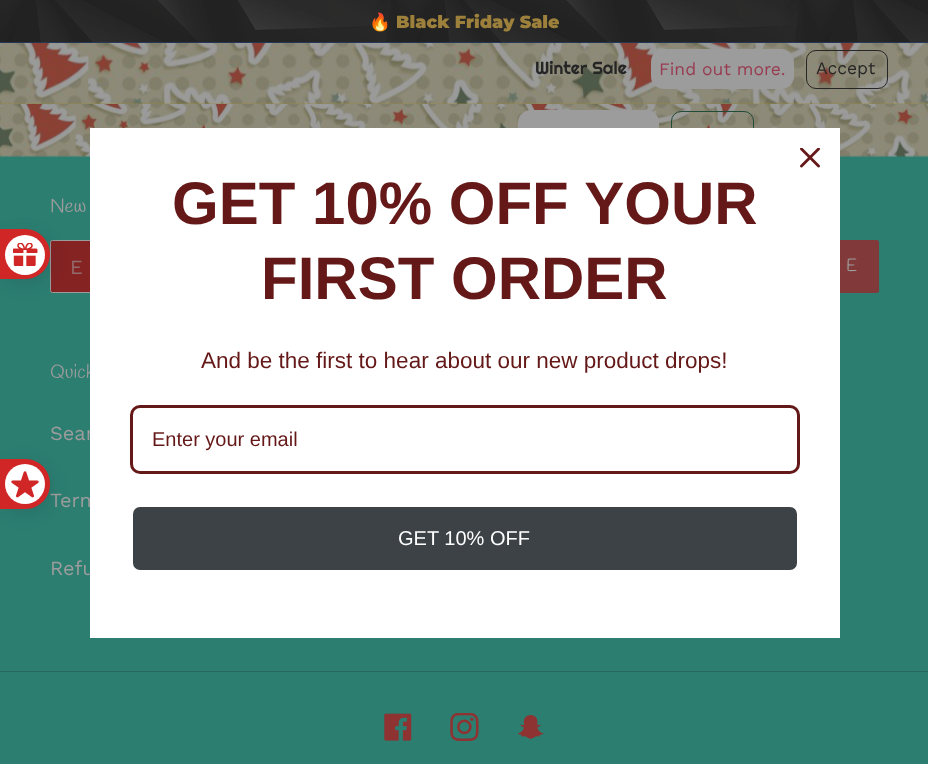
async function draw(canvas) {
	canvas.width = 928;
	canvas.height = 764;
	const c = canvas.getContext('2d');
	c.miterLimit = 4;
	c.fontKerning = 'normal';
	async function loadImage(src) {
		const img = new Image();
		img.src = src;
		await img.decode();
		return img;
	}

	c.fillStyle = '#2c7e71';
	c.fillRect(0, 0, 928, 764);
	c.fillStyle = '#254886';
	c.fillRect(0, 42, 928, 1);
	c.drawImage(await loadImage('img1.png'), 0, 0, 928, 43);
	c.font = 'bold 17.5px Noto Color Emoji';
	c.fillStyle = '#9c803b';
	c.fillText('🔥', 369, 28);
	c.font = '900 17.5px Montserrat';
	c.fillText('Black Friday Sale', 396, 28);
	c.fillStyle = '#978937';
	c.fillRect(0, 103, 928, 1);
	c.drawImage(await loadImage('img2.png'), 0, 43, 928, 61);
	c.font = '17.5px Righteous';
	c.fillStyle = '#262626';
	c.fillText('Winter Sale', 535, 74);
	c.fillStyle = '#9c9c9c';
	c.beginPath();
	c.roundRect(651, 49, 143, 40, 13);
	c.fill();
	c.font = '17.5px Work Sans';
	c.fillStyle = '#983b50';
	c.fillText('Find out more.', 659, 75);
	c.beginPath();
	c.roundRect(806.5, 50.5, 81, 38, 9.5);
	c.strokeStyle = '#262626';
	c.stroke();
	c.fillStyle = '#262626';
	c.fillText('Accept', 816, 74);
	c.drawImage(await loadImage('img3.png'), 0, 104, 928, 53);
	c.fillStyle = '#9c9c9c';
	c.beginPath();
	c.roundRect(518, 110, 141, 40, 13);
	c.fill();
	c.beginPath();
	c.roundRect(671.5, 111.5, 82, 38, 9.5);
	c.strokeStyle = '#224b38';
	c.stroke();
	c.fillStyle = '#852323';
	c.beginPath();
	c.roundRect(50.5, 240.5, 677, 52, [2, 0, 0, 2]);
	c.fill();
	c.strokeStyle = '#9c9c9c';
	c.stroke();
	c.fillStyle = '#823939';
	c.beginPath();
	c.roundRect(728, 240, 151, 53, [0, 2.5, 2.5, 0]);
	c.fill();
	c.font = '19px Handlee';
	c.fillStyle = '#9c9c9c';
	c.fillText('Quick', 50, 378);
	c.font = '20px Work Sans';
	for (const [text, x, y] of [
		['Sear', 50, 440],
		['Term', 50, 507],
		['Refu', 50, 575],
	]) {
		c.fillText(text, x, y);
	}
	c.fillStyle = '#fff';
	c.fillRect(90, 128, 750, 510);
	c.drawImage(await loadImage('img4.png'), 800, 148, 20, 20);
	c.font = 'bold 60px Liberation Sans';
	c.fillStyle = '#651818';
	c.fillText('GET 10% OFF YOUR', 172, 224);
	c.fillText('FIRST ORDER', 261, 299);
	c.font = '22.5px Liberation Sans';
	c.fillText('And be the first to hear about our new product drops!', 201, 368);
	c.beginPath();
	c.roundRect(131.5, 406.5, 667, 66, 8.5);
	c.strokeStyle = '#651818';
	c.lineWidth = 3;
	c.stroke();
	c.font = '20px Liberation Sans';
	c.fillText('Enter your email', 152, 446);
	c.fillStyle = '#3d4246';
	c.beginPath();
	c.roundRect(131.5, 505.5, 667, 66, 8.5);
	c.fill();
	c.strokeStyle = '#fff';
	c.stroke();
	c.fillStyle = '#fff';
	c.fillText('GET 10% OFF', 398, 545);
	c.fillStyle = '#11223329';
	c.filter = 'blur(9px)';
	c.beginPath();
	c.roundRect(0, 234, 50, 50, 25);
	c.fill();
	c.filter = 'none';
	c.fillStyle = '#d12626';
	c.beginPath();
	c.moveTo(50, 254);
	c.bezierCurveTo(50, 268, 39, 279, 25, 279);
	c.lineTo(0, 279);
	c.lineTo(0, 229);
	c.lineTo(25, 229);
	c.bezierCurveTo(39, 229, 50, 241, 50, 254);
	c.closePath();
	c.fill();
	c.fillStyle = '#fff';
	c.beginPath();
	c.arc(25, 255, 20, 0, 2 * Math.PI);
	c.fill();
	c.drawImage(await loadImage('img5.png'), 13, 243, 25, 23);
	c.font = '19px Handlee';
	c.fillStyle = '#9c9c9c';
	c.fillText('New', 50, 212);
	c.font = '20px Work Sans';
	c.fillStyle = '#936c6c';
	c.fillText('E', 70, 274);
	c.letterSpacing = '1px';
	c.font = '17.5px Handlee';
	c.fillStyle = '#9c9c9c';
	c.fillText('E', 846, 271);
	c.fillStyle = '#29685e';
	c.fillRect(0, 671, 928, 1);
	c.drawImage(await loadImage('img6.png'), 384, 713, 28, 28);
	c.drawImage(await loadImage('img7.png'), 450, 713, 29, 28);
	c.drawImage(await loadImage('img8.png'), 518, 715, 26, 24);
	c.fillStyle = '#11223329';
	c.filter = 'blur(9px)';
	c.beginPath();
	c.roundRect(0, 463, 50, 50, 25);
	c.fill();
	c.filter = 'none';
	c.fillStyle = '#d12626';
	c.beginPath();
	c.moveTo(50, 484);
	c.bezierCurveTo(50, 498, 39, 509, 25, 509);
	c.lineTo(0, 509);
	c.lineTo(0, 459);
	c.lineTo(25, 459);
	c.bezierCurveTo(39, 459, 50, 470, 50, 484);
	c.closePath();
	c.fill();
	c.fillStyle = '#fff';
	c.beginPath();
	c.arc(25, 484, 20, 0, 2 * Math.PI);
	c.fill();
	c.drawImage(await loadImage('img9.png'), 11, 471, 28, 27);
}

draw(document.querySelector('canvas'));
